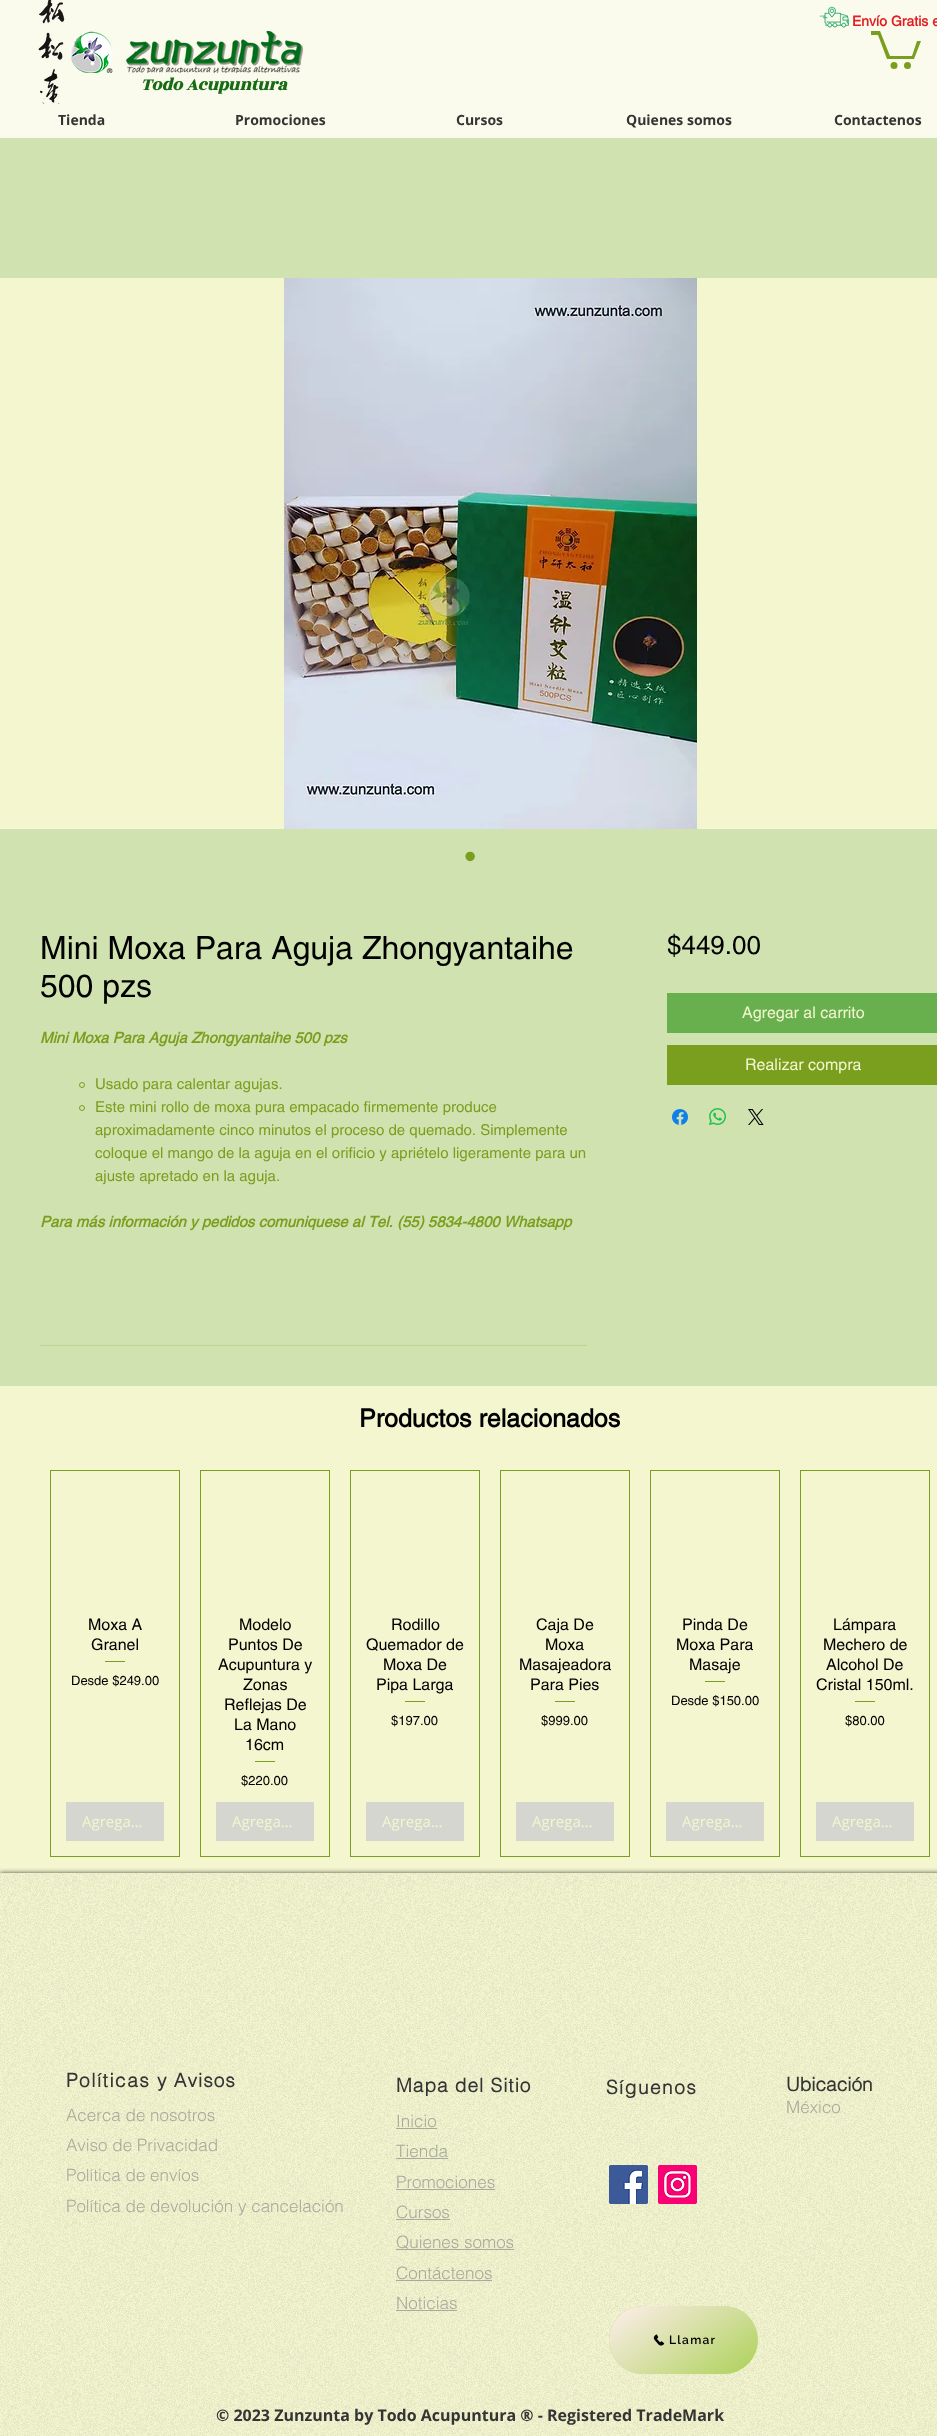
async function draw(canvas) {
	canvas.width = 937;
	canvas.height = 2436;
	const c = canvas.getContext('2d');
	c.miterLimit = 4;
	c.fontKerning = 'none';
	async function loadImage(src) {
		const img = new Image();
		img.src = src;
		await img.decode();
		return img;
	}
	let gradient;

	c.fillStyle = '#f3f6cf';
	c.fillRect(0, 0, 937, 2436);
	c.fillStyle = '#fafbec';
	c.fillRect(0, 0, 937, 138);
	c.drawImage(await loadImage('img1.png'), 819, 6, 30, 22);
	c.font = 'bold 14px helvetica';
	c.fillStyle = '#e21c21';
	c.fillText('Envío Gratis e', 852, 26);
	c.font = 'bold 14px Open Sans';
	c.fillStyle = '#343434';
	for (const [text, x, y] of [
		['Tienda', 58, 125],
		['Promociones', 235, 125],
		['Cursos', 456, 125],
		['Quienes somos', 626, 125],
		['Contactenos', 834, 125],
	]) {
		c.fillText(text, x, y);
	}
	c.fillStyle = '#7a9e1e';
	c.beginPath();
	c.moveTo(921, 41);
	c.lineTo(914, 59);
	c.lineTo(887, 59);
	c.lineTo(878, 35);
	c.lineTo(871, 35);
	c.lineTo(871, 31);
	c.lineTo(880, 31);
	c.lineTo(890, 56);
	c.lineTo(912, 56);
	c.lineTo(917, 41);
	c.fill();
	c.beginPath();
	c.arc(907.5, 65.5, 3.5, 0, 2 * Math.PI);
	c.fill();
	c.beginPath();
	c.arc(894, 65.5, 3.5, 0, 2 * Math.PI);
	c.fill();
	c.drawImage(await loadImage('img2.png'), 38, 0, 27, 104);
	c.drawImage(await loadImage('img3.png'), 70, 31, 234, 42);
	c.font = 'italic bold 18px Rozha One';
	c.fillStyle = '#176b14';
	c.fillText('Todo Acupuntura', 141, 90);
	c.fillStyle = '#d0e2b0';
	c.fillRect(0, 138, 937, 1248);
	c.fillStyle = '#f3f6cf';
	c.fillRect(0, 278, 937, 551);
	c.drawImage(await loadImage('img4.png'), 284, 278, 413, 551);
	c.font = '35px Liberation Sans';
	c.fillStyle = '#7a9e1e';
	c.fillText('•', 464, 868);
	c.font = '32px helvetica';
	c.fillStyle = '#000';
	c.fillText('Mini Moxa Para Aguja Zhongyantaihe', 40, 959);
	c.fillText('500 pzs', 40, 997);
	c.font = 'italic bold 15px helvetica';
	c.fillStyle = '#7a9e1e';
	c.fillText('Mini Moxa Para Aguja Zhongyantaihe 500 pzs', 40, 1043);
	c.beginPath();
	c.arc(82, 1085, 2.5, 0, 2 * Math.PI);
	c.strokeStyle = '#7a9e1e';
	c.stroke();
	c.font = '15px helvetica';
	c.fillText('Usado para calentar agujas.', 95, 1089);
	c.beginPath();
	c.arc(82, 1108, 2.5, 0, 2 * Math.PI);
	c.stroke();
	for (const [text, x, y] of [
		['Este mini rollo de moxa pura empacado firmemente produce', 95, 1112],
		['aproximadamente cinco minutos el proceso de quemado. Simplemente', 95, 1135],
		['coloque el mango de la aguja en el orificio y apriételo ligeramente para un', 95, 1158],
		['ajuste apretado en la aguja.', 95, 1181],
	]) {
		c.fillText(text, x, y);
	}
	c.font = 'italic bold 15px helvetica';
	c.fillText('Para más información y pedidos comuniquese al Tel.', 40, 1227);
	c.fillText('(55) 5834-4800 Whatsapp', 397, 1227);
	c.fillStyle = '#bfd493';
	c.fillRect(40, 1345, 547, 1);
	c.font = '26px helvetica';
	c.fillStyle = '#000';
	c.fillText('$449.00', 667, 954);
	c.fillStyle = '#68b04d';
	c.fillRect(667, 993, 270, 40);
	c.font = '16px helvetica';
	c.fillStyle = '#f3f6cf';
	c.fillText('Agregar al carrito', 742, 1018);
	c.fillStyle = '#7a9e1e';
	c.fillRect(667, 1045, 270, 40);
	c.fillStyle = '#f3f6cf';
	c.fillText('Realizar compra', 745, 1070);
	c.drawImage(await loadImage('img5.png'), 672, 1109, 16, 16);
	c.drawImage(await loadImage('img6.png'), 709, 1108, 17, 17);
	c.drawImage(await loadImage('img7.png'), 748, 1109, 16, 16);
	c.font = 'bold 25px helvetica';
	c.fillStyle = '#000';
	c.fillText('Productos relacionados', 359, 1427);
	c.strokeRect(50.5, 1470.5, 129, 386);
	c.font = '16px helvetica';
	c.fillText('Moxa A', 88, 1630);
	c.fillText('Granel', 91, 1650);
	c.fillStyle = '#7a9e1e';
	c.fillRect(105, 1661, 20, 1);
	c.font = '13px helvetica';
	c.fillStyle = '#000';
	c.fillText('Desde $249.00', 71, 1685);
	c.fillStyle = '#d5d6d0';
	c.fillRect(66, 1802, 98, 39);
	c.font = '15px Open Sans';
	c.fillStyle = '#f3f6cf';
	c.fillText('Agrega…', 82, 1827);
	c.strokeRect(200.5, 1470.5, 129, 386);
	c.font = '16px helvetica';
	c.fillStyle = '#000';
	for (const [text, x, y] of [
		['Modelo', 239, 1630],
		['Puntos De', 228, 1650],
		['Acupuntura y', 218, 1670],
		['Zonas', 243, 1690],
		['Reflejas De', 224, 1710],
		['La Mano', 234, 1730],
		['16cm', 245, 1750],
	]) {
		c.fillText(text, x, y);
	}
	c.fillStyle = '#7a9e1e';
	c.fillRect(255, 1761, 20, 1);
	c.font = '13px helvetica';
	c.fillStyle = '#000';
	c.fillText('$220.00', 241, 1785);
	c.fillStyle = '#d5d6d0';
	c.fillRect(216, 1802, 98, 39);
	c.font = '15px Open Sans';
	c.fillStyle = '#f3f6cf';
	c.fillText('Agrega…', 232, 1827);
	c.strokeRect(350.5, 1470.5, 129, 386);
	c.font = '16px helvetica';
	c.fillStyle = '#000';
	for (const [text, x, y] of [
		['Rodillo', 391, 1630],
		['Quemador de', 366, 1650],
		['Moxa De', 383, 1670],
		['Pipa Larga', 376, 1690],
	]) {
		c.fillText(text, x, y);
	}
	c.fillStyle = '#7a9e1e';
	c.fillRect(405, 1701, 20, 1);
	c.font = '13px helvetica';
	c.fillStyle = '#000';
	c.fillText('$197.00', 391, 1725);
	c.fillStyle = '#d5d6d0';
	c.fillRect(366, 1802, 98, 39);
	c.font = '15px Open Sans';
	c.fillStyle = '#f3f6cf';
	c.fillText('Agrega…', 382, 1827);
	c.strokeRect(500.5, 1470.5, 129, 386);
	c.font = '16px helvetica';
	c.fillStyle = '#000';
	for (const [text, x, y] of [
		['Caja De', 536, 1630],
		['Moxa', 545, 1650],
		['Masajeadora', 519, 1670],
		['Para Pies', 530, 1690],
	]) {
		c.fillText(text, x, y);
	}
	c.fillStyle = '#7a9e1e';
	c.fillRect(555, 1701, 20, 1);
	c.font = '13px helvetica';
	c.fillStyle = '#000';
	c.fillText('$999.00', 541, 1725);
	c.fillStyle = '#d5d6d0';
	c.fillRect(516, 1802, 98, 39);
	c.font = '15px Open Sans';
	c.fillStyle = '#f3f6cf';
	c.fillText('Agrega…', 532, 1827);
	c.strokeRect(650.5, 1470.5, 129, 386);
	c.font = '16px helvetica';
	c.fillStyle = '#000';
	for (const [text, x, y] of [
		['Pinda De', 682, 1630],
		['Moxa Para', 676, 1650],
		['Masaje', 689, 1670],
	]) {
		c.fillText(text, x, y);
	}
	c.fillStyle = '#7a9e1e';
	c.fillRect(705, 1681, 20, 1);
	c.font = '13px helvetica';
	c.fillStyle = '#000';
	c.fillText('Desde $150.00', 671, 1705);
	c.fillStyle = '#d5d6d0';
	c.fillRect(666, 1802, 98, 39);
	c.font = '15px Open Sans';
	c.fillStyle = '#f3f6cf';
	c.fillText('Agrega…', 682, 1827);
	c.strokeRect(800.5, 1470.5, 129, 386);
	c.font = '16px helvetica';
	c.fillStyle = '#000';
	for (const [text, x, y] of [
		['Lámpara', 833, 1630],
		['Mechero de', 823, 1650],
		['Alcohol De', 826, 1670],
		['Cristal 150ml.', 816, 1690],
	]) {
		c.fillText(text, x, y);
	}
	c.fillStyle = '#7a9e1e';
	c.fillRect(855, 1701, 20, 1);
	c.font = '13px helvetica';
	c.fillStyle = '#000';
	c.fillText('$80.00', 845, 1725);
	c.fillStyle = '#d5d6d0';
	c.fillRect(816, 1802, 98, 39);
	c.font = '15px Open Sans';
	c.fillStyle = '#f3f6cf';
	c.fillText('Agrega…', 832, 1827);
	c.save();
	c.beginPath();
	c.rect(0, 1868, 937, 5);
	c.clip();
	c.fillStyle = '#000000b3';
	c.filter = 'blur(2.5px)';
	c.beginPath();
	c.rect(0, 1873, 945, 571);
	c.fill();
	c.filter = 'none';
	c.restore();
	c.drawImage(await loadImage('img8.png'), 0, 1873, 937, 563);
	c.letterSpacing = '1.5px';
	c.font = 'bold 19px "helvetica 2"';
	c.fillStyle = '#343434';
	c.fillText('Políticas', 66, 2087);
	c.letterSpacing = '1px';
	c.fillText('y Avisos', 157, 2087);
	c.letterSpacing = '0px';
	c.font = '300 17px helvetica';
	c.fillStyle = '#a8aa9f';
	for (const [text, x, y] of [
		['Acerca de nosotros', 66, 2121],
		['Aviso de Privacidad', 66, 2151],
		['Política de envíos', 66, 2181],
		['Política de devolución y cancelación', 66, 2212],
	]) {
		c.fillText(text, x, y);
	}
	c.letterSpacing = '1px';
	c.font = 'bold 19px "helvetica 2"';
	c.fillStyle = '#343434';
	c.fillText('Mapa del Sitio', 396, 2092);
	c.letterSpacing = '0px';
	c.font = '300 17px helvetica';
	c.fillStyle = '#a8aa9f';
	c.fillText('Inicio', 396, 2127);
	c.fillRect(396, 2128, 41, 1);
	c.fillText('Tienda', 396, 2157);
	c.fillRect(396, 2158, 52, 1);
	c.fillText('Promociones', 396, 2188);
	c.fillRect(396, 2189, 99, 1);
	c.fillText('Cursos', 396, 2218);
	c.fillRect(396, 2219, 54, 1);
	c.fillText('Quienes somos', 396, 2248);
	c.fillRect(396, 2249, 118, 1);
	c.fillText('Contáctenos', 396, 2279);
	c.fillRect(396, 2280, 96, 1);
	c.fillText('Noticias', 396, 2309);
	c.fillRect(396, 2310, 61, 1);
	c.letterSpacing = '1.5px';
	c.font = 'bold 19px "helvetica 2"';
	c.fillStyle = '#343434';
	c.fillText('Síguenos', 606, 2094);
	c.letterSpacing = '0px';
	c.fillText('Ubicación', 786, 2091);
	c.font = '300 17px helvetica';
	c.fillStyle = '#a8aa9f';
	c.fillText('México', 786, 2113);
	c.drawImage(await loadImage('img9.png'), 609, 2165, 39, 39);
	c.drawImage(await loadImage('img10.png'), 658, 2165, 39, 39);
	c.fillStyle = '#acd157';
	c.beginPath();
	c.roundRect(609, 2306, 149, 68, 34);
	c.fill();
	gradient = c.createLinearGradient(643, 2282, 724, 2398);
	gradient.addColorStop(0, '#fee');
	gradient.addColorStop(1, '#ffeeee00');
	c.fillStyle = gradient;
	c.beginPath();
	c.roundRect(609, 2306, 149, 68, 34);
	c.fill();
	c.drawImage(await loadImage('img11.png'), 653, 2334, 12, 12);
	c.letterSpacing = '1.25px';
	c.font = '600 12px Raleway';
	c.fillStyle = '#000';
	c.fillText('Llamar', 669, 2344);
	c.letterSpacing = '0px';
	c.font = 'bold 16px Open Sans';
	c.fillStyle = '#343434';
	c.fillText('© 2023 Zunzunta by Todo Acupuntura ® - Registered TradeMark', 216, 2421);
}

draw(document.querySelector('canvas'));
